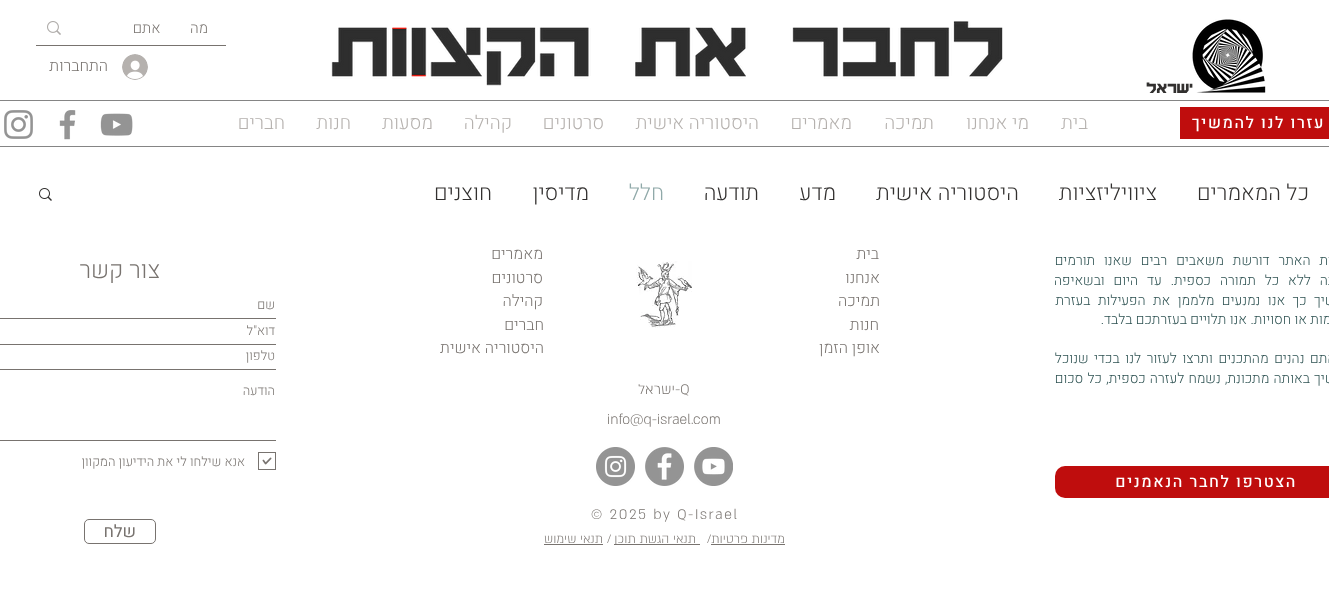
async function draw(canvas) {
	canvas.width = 1329;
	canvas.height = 592;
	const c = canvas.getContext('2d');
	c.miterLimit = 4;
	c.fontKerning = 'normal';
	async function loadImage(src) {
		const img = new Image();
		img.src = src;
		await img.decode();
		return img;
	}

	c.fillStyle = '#fff';
	c.fillRect(0, 0, 1329, 592);
	c.drawImage(await loadImage('img1.png'), 331, 21, 672, 65);
	c.fillStyle = '#78736f';
	c.fillRect(36, 45, 190, 1);
	c.wordSpacing = '26px';
	c.direction = 'rtl';
	c.font = '300 15px Heebo';
	c.fillText('מה אתם', 208, 33);
	c.drawImage(await loadImage('img2.png'), 47, 21, 14, 14);
	c.drawImage(await loadImage('img3.png'), 122, 54, 26, 26);
	c.wordSpacing = '0px';
	c.font = '300 16px Heebo';
	c.fillText('התחברות', 108, 71);
	c.font = '16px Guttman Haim';
	c.fillStyle = '#32302f';
	c.fillText('ישראל', 1193, 93);
	c.drawImage(await loadImage('img4.png'), 1192, 19, 74, 74);
	c.fillStyle = '#858585';
	c.fillRect(0, 100, 1329, 1);
	c.fillStyle = '#bf0d0d';
	c.fillRect(1180, 107, 149, 32);
	c.letterSpacing = '1.6px';
	c.font = '500 16px Heebo';
	c.fillStyle = '#fff';
	c.fillText('עזרו לנו להמשיך', 1325, 128);
	c.letterSpacing = '0px';
	c.font = '300 19px Heebo';
	c.fillStyle = '#b5b1ae';
	for (const [text, x, y] of [
		['בית', 1088, 129],
		['מי אנחנו', 1029, 129],
		['תמיכה', 934, 129],
		['מאמרים', 852, 129],
		['היסטוריה אישית', 759, 129],
		['סרטונים', 604, 129],
		['קהילה', 512, 129],
		['מסעות', 433, 129],
		['חנות', 351, 129],
		['חברים', 285, 129],
	]) {
		c.fillText(text, x, y);
	}
	c.drawImage(await loadImage('img5.png'), 100, 113, 33, 23);
	c.drawImage(await loadImage('img6.png'), 59, 110, 17, 30);
	c.drawImage(await loadImage('img7.png'), 4, 110, 29, 29);
	c.fillStyle = '#858585';
	c.fillRect(0, 146, 1329, 1);
	c.font = '300 22px Heebo';
	c.fillStyle = '#32302f';
	for (const [text, x, y] of [
		['כל המאמרים', 1309, 200],
		['ציוויליזציות', 1157, 200],
		['היסטוריה אישית', 1019, 200],
		['מדע', 836, 200],
		['תודעה', 759, 200],
	]) {
		c.fillText(text, x, y);
	}
	c.fillStyle = '#90a9a9';
	c.fillText('חלל', 664, 200);
	c.fillStyle = '#32302f';
	c.fillText('מדיסין', 589, 200);
	c.fillText('חוצנים', 492, 200);
	c.drawImage(await loadImage('img8.png'), 39, 188, 13, 13);
	c.wordSpacing = '5.5px';
	c.font = '300 14px Heebo';
	c.fillStyle = '#2e5252';
	c.fillText('פעילות האתר דורשת משאבים רבים שאנו תורמים', 1359, 265);
	c.fillText('באהבה ללא כל תמורה כספית. עד היום ובשאיפה', 1359, 285);
	c.wordSpacing = '4px';
	c.fillText('להמשיך כך אנו נמנעים מלממן את הפעילות בעזרת', 1359, 305);
	c.wordSpacing = '0px';
	c.fillText('פרסומות או חסויות. אנו תלויים בעזרתכם בלבד.', 1359, 324);
	c.wordSpacing = '2.25px';
	c.fillText('אם אתם נהנים מהתכנים ותרצו לעזור לנו בכדי שנוכל', 1359, 363);
	c.wordSpacing = '0.75px';
	c.fillText('להמשיך באותה מתכונת, נשמח לעזרה כספית, כל סכום', 1359, 383);
	c.wordSpacing = '0px';
	c.font = '300 16px Heebo';
	c.fillStyle = '#78736f';
	for (const [text, x, y] of [
		['בית', 879, 259],
		['אנחנו', 880, 283],
		['תמיכה', 880, 306],
		['חנות', 879, 330],
		['אופן הזמן', 880, 353],
	]) {
		c.fillText(text, x, y);
	}
	c.drawImage(await loadImage('img9.png'), 636, 261, 56, 67);
	for (const [text, x, y] of [
		['מאמרים', 543, 259],
		['סרטונים', 543, 283],
		['קהילה', 543, 306],
		['חברים', 544, 330],
		['היסטוריה אישית', 544, 353],
	]) {
		c.fillText(text, x, y);
	}
	c.font = '300 24px Heebo';
	c.fillText('צור קשר', 160, 278);
	c.fillRect(0, 318, 276, 1);
	c.font = '300 13px Heebo';
	c.fillText('שם', 275, 309);
	c.fillRect(0, 344, 276, 1);
	c.fillText('דוא"ל', 275, 335);
	c.fillRect(0, 369, 276, 1);
	c.fillText('טלפון', 275, 360);
	c.fillRect(0, 440, 276, 1);
	c.fillText('הודעה', 275, 395);
	c.strokeStyle = '#78736f';
	c.strokeRect(258.5, 452.5, 17, 17);
	c.fillText('אנא שילחו לי את הידיעון המקוון', 245, 466);
	c.drawImage(await loadImage('img10.png'), 262, 457, 10, 8);
	c.beginPath();
	c.roundRect(84.5, 519.5, 71, 24, 4.5);
	c.stroke();
	c.font = '17px Heebo';
	c.fillText('שלח', 136, 537);
	c.direction = 'ltr';
	c.font = '300 16px "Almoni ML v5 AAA"';
	c.fillText('-Q', 675, 394);
	c.direction = 'rtl';
	c.fillText('ישראל', 675, 394);
	c.direction = 'ltr';
	c.fillText('info@q-israel.com', 607, 424);
	c.fillStyle = '#bf0d0d';
	c.beginPath();
	c.roundRect(1055, 466, 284, 32, 10);
	c.fill();
	c.letterSpacing = '1.6px';
	c.direction = 'rtl';
	c.font = '500 16px Heebo';
	c.fillStyle = '#fff';
	c.fillText('הצטרפו לחבר הנאמנים', 1297, 487);
	c.drawImage(await loadImage('img11.png'), 694, 447, 39, 39);
	c.drawImage(await loadImage('img12.png'), 645, 447, 39, 39);
	c.drawImage(await loadImage('img13.png'), 596, 447, 39, 39);
	c.direction = 'ltr';
	c.font = '300 16px "Almoni ML v5 AAA"';
	c.fillStyle = '#78736f';
	c.fillText('© 2025 by Q-Israel', 591, 519);
	c.letterSpacing = '0px';
	c.direction = 'rtl';
	c.font = '300 14px "Almoni ML v5 AAA"';
	c.fillText('מדינות פרטיות', 785, 543);
	c.fillRect(711, 544, 74, 1);
	c.direction = 'ltr';
	c.fillText('/', 707, 543);
	c.fillRect(614, 544, 86, 1);
	c.direction = 'rtl';
	c.fillText('תנאי הגשת תוכן', 696, 543);
	c.direction = 'ltr';
	c.fillText('/', 607, 543);
	c.direction = 'rtl';
	c.fillText('תנאי שימוש', 603, 543);
	c.fillRect(544, 544, 59, 1);
}

draw(document.querySelector('canvas'));
